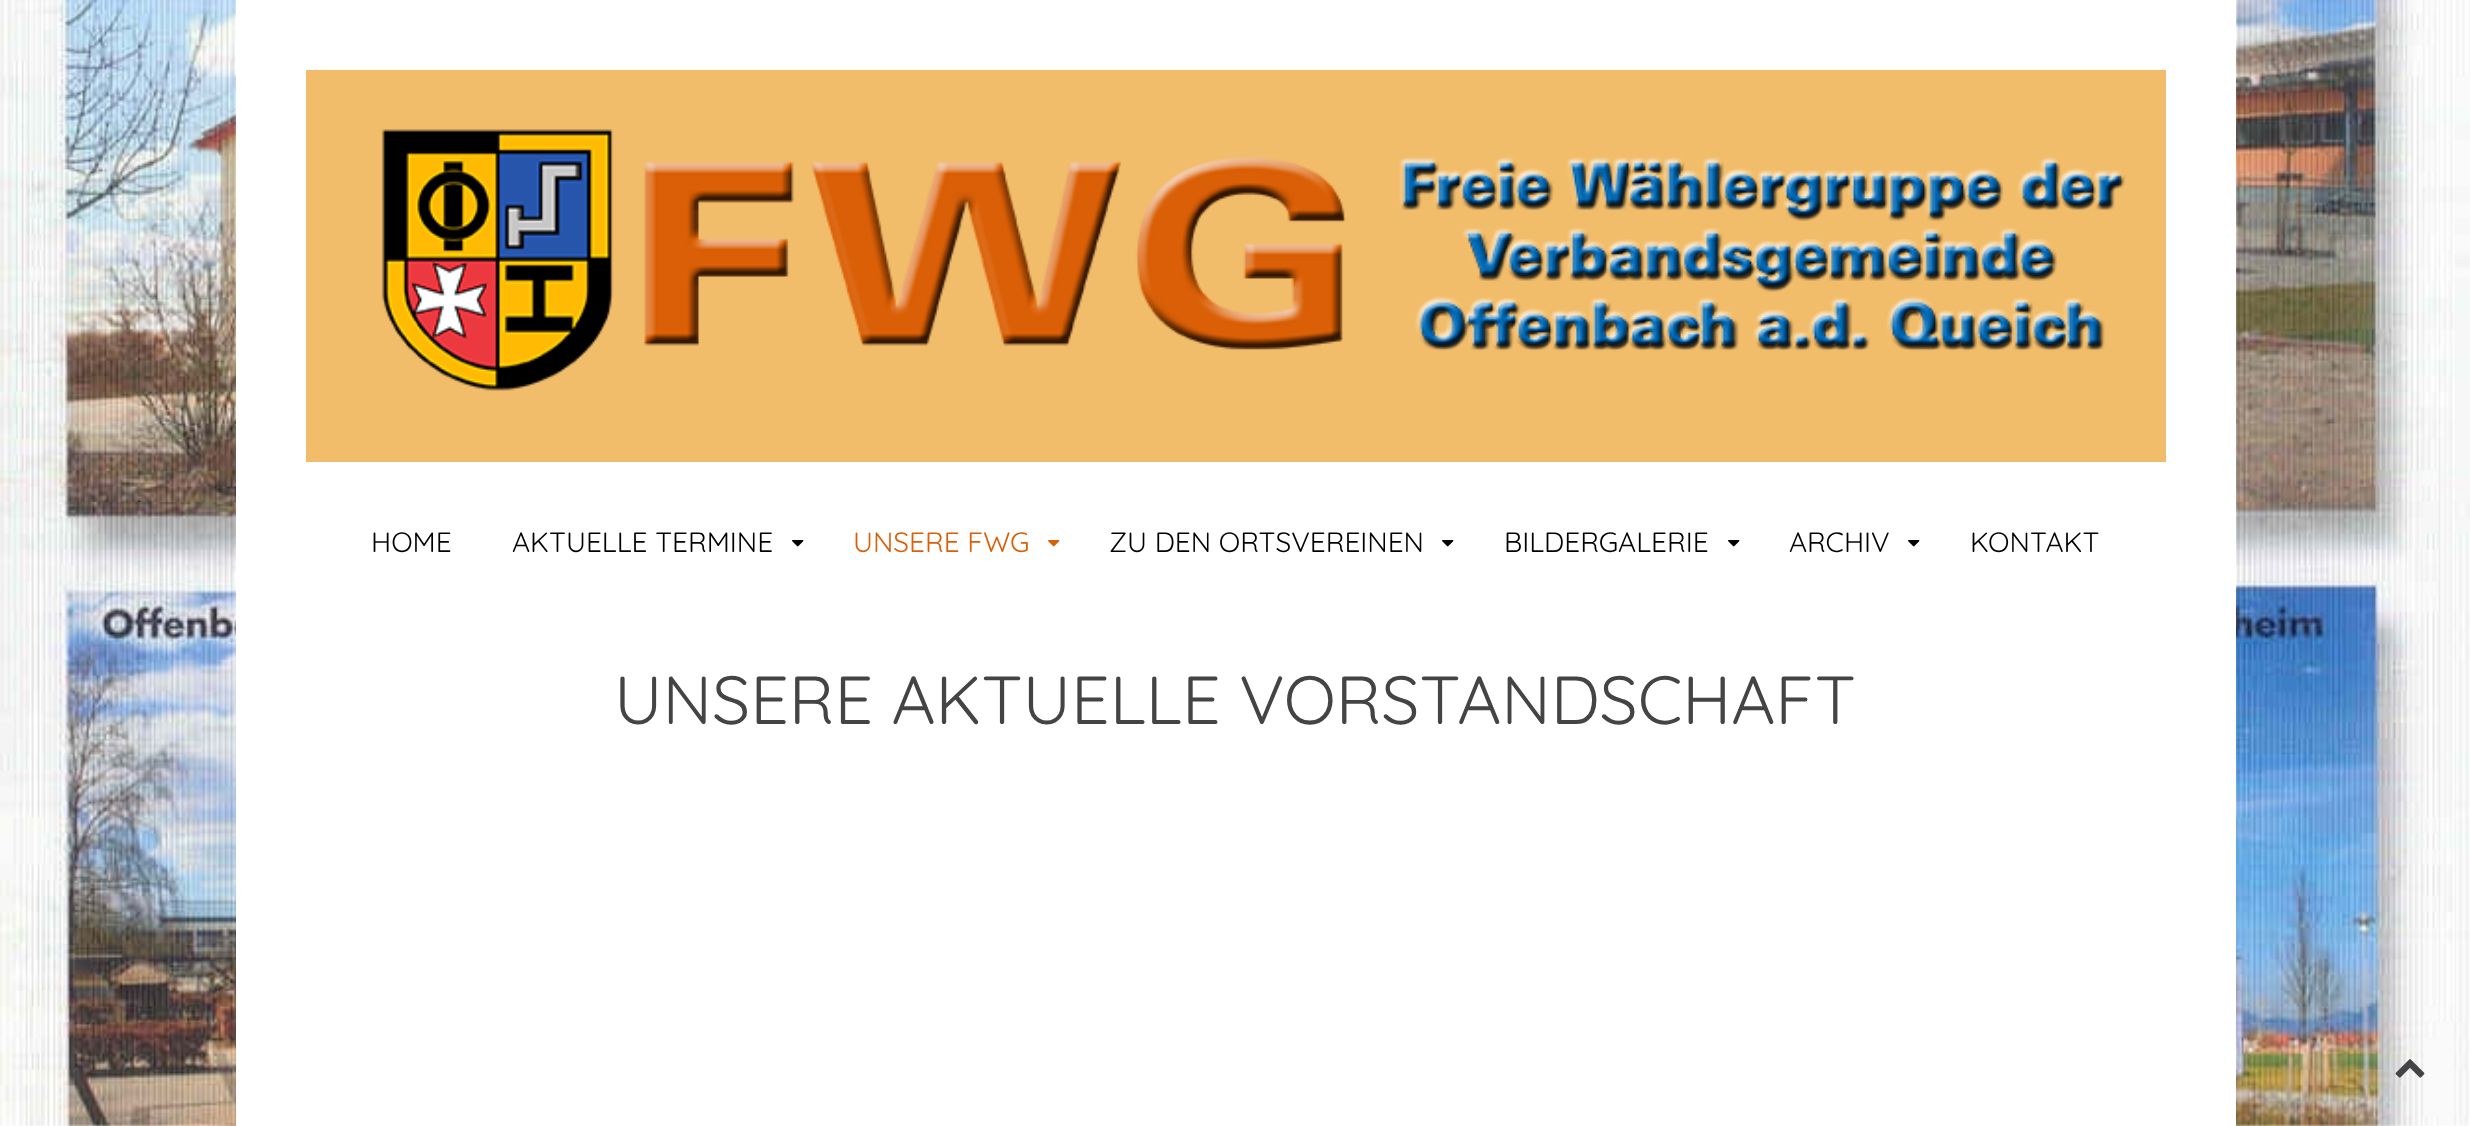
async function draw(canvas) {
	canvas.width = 2470;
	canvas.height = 1126;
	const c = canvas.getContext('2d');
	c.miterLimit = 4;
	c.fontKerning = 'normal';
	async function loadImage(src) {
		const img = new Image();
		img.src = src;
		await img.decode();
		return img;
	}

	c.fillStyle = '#fff';
	c.fillRect(0, 0, 2470, 1126);
	c.drawImage(await loadImage('img1.png'), 0, 0, 2470, 1126);
	c.fillRect(236, 0, 2000, 1126);
	c.fillStyle = '#f1bd6b';
	c.fillRect(306, 70, 1860, 392);
	c.drawImage(await loadImage('img2.png'), 381, 129, 1745, 262);
	c.font = '300 28px Quicksand';
	c.fillStyle = '#000';
	c.fillText('HOME', 371, 552);
	c.fillText('AKTUELLE TERMINE', 512, 552);
	c.drawImage(await loadImage('img3.png'), 792, 540, 12, 7);
	c.fillStyle = '#da5f06';
	c.fillText('UNSERE FWG', 853, 552);
	c.drawImage(await loadImage('img4.png'), 1048, 540, 12, 7);
	c.fillStyle = '#000';
	c.fillText('ZU DEN ORTSVEREINEN', 1109, 552);
	c.drawImage(await loadImage('img3.png'), 1442, 540, 12, 7);
	c.fillText('BILDERGALERIE', 1504, 552);
	c.drawImage(await loadImage('img3.png'), 1728, 540, 12, 7);
	c.fillText('ARCHIV', 1789, 552);
	c.drawImage(await loadImage('img3.png'), 1908, 540, 12, 7);
	c.fillText('KONTAKT', 1970, 552);
	c.font = '300 68px Quicksand';
	c.fillStyle = '#444';
	c.fillText('UNSERE AKTUELLE VORSTANDSCHAFT', 614, 724);
	c.drawImage(await loadImage('img5.png'), 2395, 1059, 30, 19);
}

draw(document.querySelector('canvas'));
